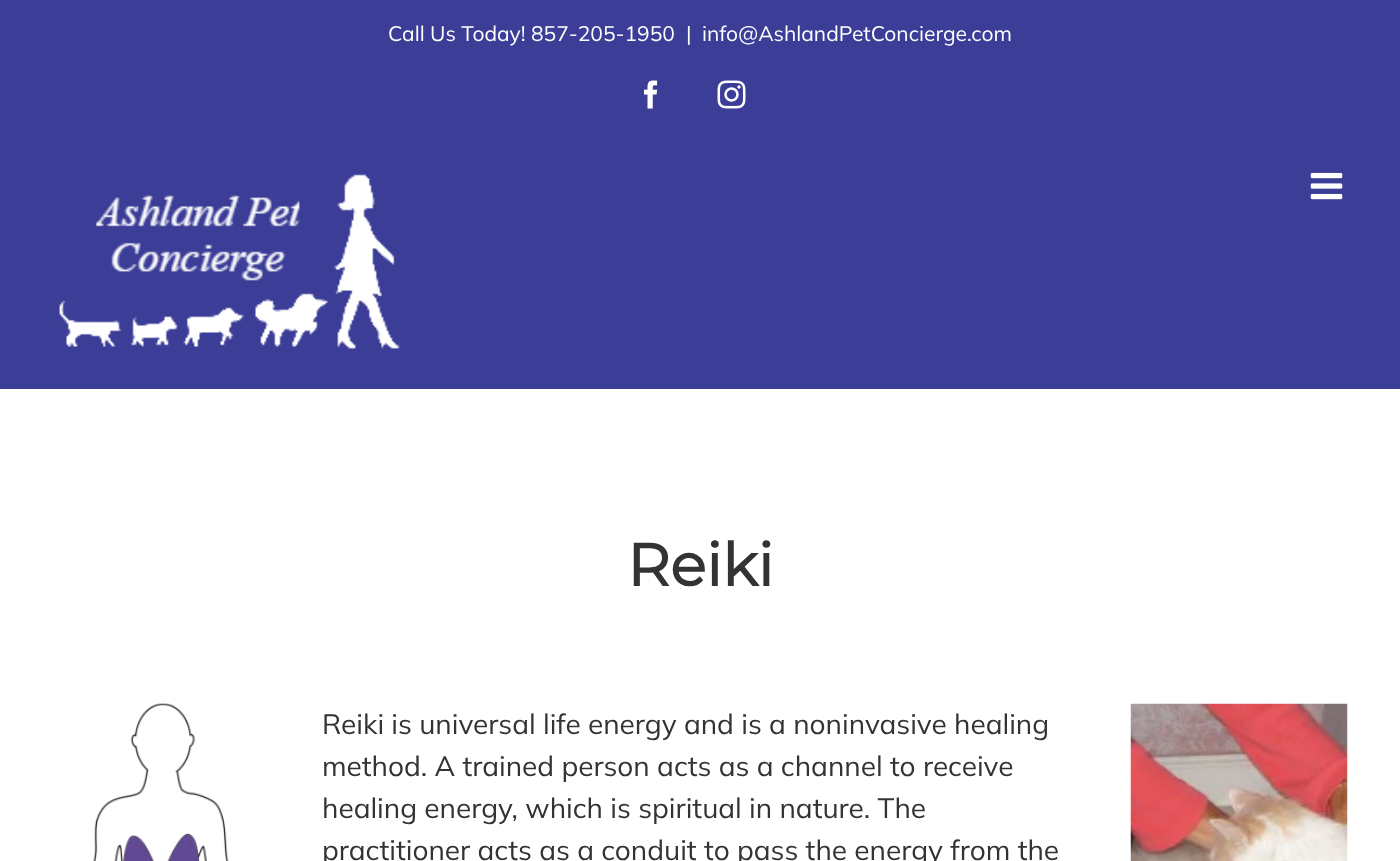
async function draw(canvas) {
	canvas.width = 1400;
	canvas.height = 861;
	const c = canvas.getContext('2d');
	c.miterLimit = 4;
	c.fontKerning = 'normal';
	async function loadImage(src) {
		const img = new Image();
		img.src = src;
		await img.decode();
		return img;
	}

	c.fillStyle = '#fff';
	c.fillRect(0, 0, 1400, 861);
	c.fillStyle = '#3b3d97';
	c.fillRect(0, 0, 1400, 389);
	c.font = '21px Mulish';
	c.fillStyle = '#fff';
	for (const [text, x, y] of [
		['Call Us Today! 857-205-1950', 388, 41],
		['|', 686, 41],
		['info@AshlandPetConcierge.com', 702, 41],
	]) {
		c.fillText(text, x, y);
	}
	c.drawImage(await loadImage('img1.png'), 644, 80, 14, 29);
	c.drawImage(await loadImage('img2.png'), 717, 80, 29, 29);
	c.drawImage(await loadImage('img3.png'), 59, 174, 341, 175);
	c.drawImage(await loadImage('img4.png'), 1310, 172, 33, 28);
	c.font = 'bold 59.5px Montserrat';
	c.fillStyle = '#333';
	c.fillText('Reiki', 627, 586);
	c.drawImage(await loadImage('img5.png'), 93, 703, 136, 158);
	c.font = '28px Mulish';
	for (const [text, x, y] of [
		['Reiki is universal life energy and is a noninvasive healing', 322, 734],
		['method. A trained person acts as a channel to receive', 322, 776],
		['healing energy, which is spiritual in nature. The', 322, 818],
		['practitioner acts as a conduit to pass the energy from the', 322, 860],
	]) {
		c.fillText(text, x, y);
	}
	c.drawImage(await loadImage('img6.png'), 1130, 703, 218, 158);
}

draw(document.querySelector('canvas'));
